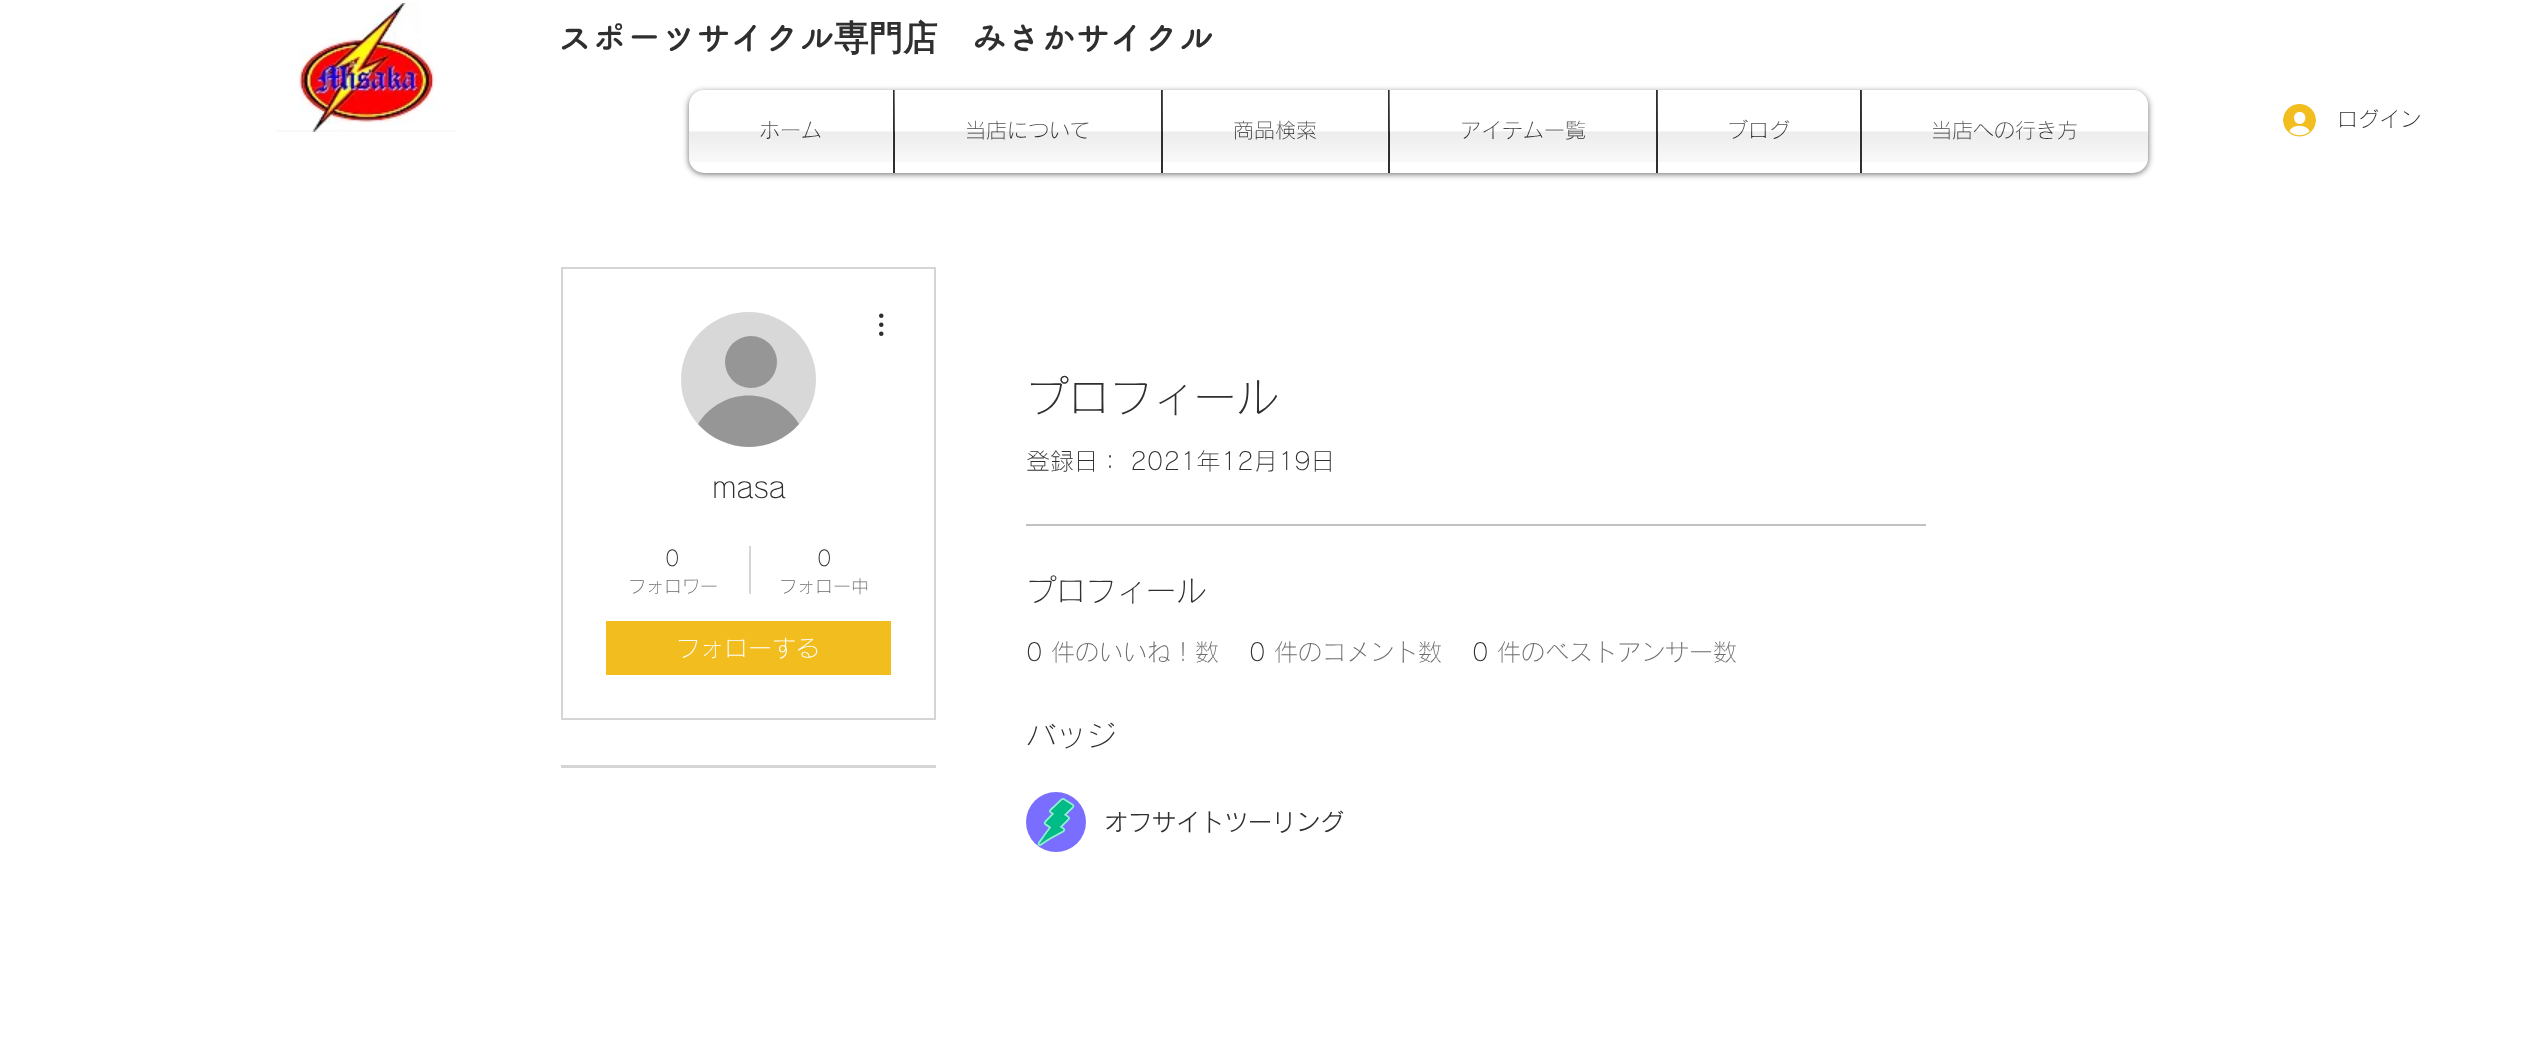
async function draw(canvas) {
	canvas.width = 2532;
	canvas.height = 1043;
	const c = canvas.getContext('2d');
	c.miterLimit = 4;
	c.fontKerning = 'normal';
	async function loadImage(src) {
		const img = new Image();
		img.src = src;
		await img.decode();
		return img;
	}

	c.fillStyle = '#fff';
	c.fillRect(0, 0, 2532, 1043);
	c.drawImage(await loadImage('img1.png'), 276, 3, 181, 129);
	c.font = 'bold 34.5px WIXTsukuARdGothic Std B';
	c.fillStyle = '#2f2f30';
	c.fillText('スポーツサイクル', 558, 50);
	c.font = 'bold 34.5px WenQuanYi Zen Hei';
	c.fillText('専門店', 834, 50);
	c.font = 'bold 34.5px WIXTsukuARdGothic Std B';
	c.fillText('みさかサイクル', 972, 50);
	c.fillStyle = '#00000099';
	c.filter = 'blur(3px)';
	c.beginPath();
	c.roundRect(689, 92, 1459, 82, 15);
	c.fill();
	c.filter = 'none';
	c.drawImage(await loadImage('img2.png'), 689, 105, 1460, 55);
	c.fillStyle = '#fff';
	c.beginPath();
	c.roundRect(689, 90, 204, 83, [15, 0, 0, 15]);
	c.fill();
	c.font = '300 21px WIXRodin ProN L';
	c.fillStyle = '#2f2f30';
	c.fillText('ホーム', 759, 138);
	c.drawImage(await loadImage('img3.png'), 689, 121, 204, 41);
	c.fillStyle = '#fff';
	c.fillRect(895, 90, 266, 83);
	c.fillStyle = '#2f2f30';
	c.fillRect(893, 90, 2, 83);
	c.fillText('当店について', 965, 138);
	c.drawImage(await loadImage('img4.png'), 894, 90, 267, 72);
	c.fillStyle = '#fff';
	c.fillRect(1163, 90, 225, 83);
	c.fillStyle = '#2f2f30';
	c.fillRect(1161, 90, 2, 83);
	c.fillText('商品検索', 1233, 138);
	c.drawImage(await loadImage('img5.png'), 1162, 90, 226, 72);
	c.fillStyle = '#fff';
	c.fillRect(1390, 90, 266, 83);
	c.fillStyle = '#2f2f30';
	c.fillRect(1388, 90, 2, 83);
	c.fillText('アイテム一覧', 1460, 138);
	c.drawImage(await loadImage('img6.png'), 1389, 90, 267, 72);
	c.fillStyle = '#fff';
	c.fillRect(1658, 90, 202, 83);
	c.fillStyle = '#2f2f30';
	c.fillRect(1656, 90, 2, 83);
	c.fillText('ブログ', 1727, 138);
	c.drawImage(await loadImage('img7.png'), 1657, 90, 203, 72);
	c.fillStyle = '#fff';
	c.beginPath();
	c.roundRect(1860, 90, 288, 83, [0, 15, 15, 0]);
	c.fill();
	c.fillStyle = '#2f2f30';
	c.fillRect(1860, 90, 2, 83);
	c.fillText('当店への行き方', 1931, 138);
	c.drawImage(await loadImage('img8.png'), 1861, 90, 287, 72);
	c.drawImage(await loadImage('img9.png'), 2283, 104, 33, 33);
	c.fillText('ログイン', 2337, 127);
	c.strokeStyle = '#d5d5d6';
	c.lineWidth = 2;
	c.strokeRect(562, 268, 373, 451);
	c.fillStyle = '#d8d8d8';
	c.beginPath();
	c.arc(748.5, 379.5, 67.5, 0, 2 * Math.PI);
	c.fill();
	c.fillStyle = '#969696';
	c.beginPath();
	c.arc(751, 362, 26, 0, 2 * Math.PI);
	c.fill();
	c.beginPath();
	c.moveTo(799, 424);
	c.bezierCurveTo(772, 455, 725, 454, 698, 424);
	c.bezierCurveTo(722, 386, 775, 386, 799, 424);
	c.closePath();
	c.fill();
	c.drawImage(await loadImage('img10.png'), 879, 313, 5, 23);
	c.font = '300 30px WIXRodin ProN L';
	c.fillStyle = '#2f2f30';
	c.fillText('masa', 712, 498);
	c.font = '300 21px WIXRodin ProN L';
	c.fillText('0', 665, 566);
	c.font = '300 18px WIXRodin ProN L';
	c.fillStyle = '#6d6d6e';
	c.fillText('フォロワー', 628, 593);
	c.fillStyle = '#d5d5d6';
	c.fillRect(749, 546, 2, 48);
	c.font = '300 21px WIXRodin ProN L';
	c.fillStyle = '#2f2f30';
	c.fillText('0', 817, 566);
	c.font = '300 18px WIXRodin ProN L';
	c.fillStyle = '#6d6d6e';
	c.fillText('フォロー中', 779, 593);
	c.fillStyle = '#f2bd1e';
	c.fillRect(606, 621, 285, 54);
	c.font = '300 24px WIXRodin ProN L';
	c.fillStyle = '#fff';
	c.fillText('フォローする', 676, 657);
	c.fillStyle = '#d5d5d6';
	c.fillRect(561, 765, 375, 3);
	c.font = '300 42px WIXRodin ProN L';
	c.fillStyle = '#2f2f30';
	c.fillText('プロフィール', 1026, 413);
	c.font = '300 24px WIXRodin ProN L';
	c.fillText('登録日： 2021年12月19日', 1026, 470);
	c.fillStyle = '#c1c1c1';
	c.fillRect(1026, 524, 900, 2);
	c.font = '300 30px WIXRodin ProN L';
	c.fillStyle = '#2f2f30';
	c.fillText('プロフィール', 1026, 602);
	c.font = '300 24px WIXRodin ProN L';
	c.fillText('0', 1026, 661);
	c.fillStyle = '#6d6d6e';
	c.fillText('件のいいね！数', 1051, 661);
	c.fillStyle = '#2f2f30';
	c.fillText('0', 1249, 661);
	c.fillStyle = '#6d6d6e';
	c.fillText('件のコメント数', 1274, 661);
	c.fillStyle = '#2f2f30';
	c.fillText('0', 1472, 661);
	c.fillStyle = '#6d6d6e';
	c.fillText('件のベストアンサー数', 1497, 661);
	c.font = '300 30px WIXRodin ProN L';
	c.fillStyle = '#2f2f30';
	c.fillText('バッジ', 1026, 747);
	c.fillStyle = '#796eff';
	c.beginPath();
	c.arc(1056, 822, 30, 0, 2 * Math.PI);
	c.fill();
	c.drawImage(await loadImage('img11.png'), 1037, 798, 38, 48);
	c.font = '500 24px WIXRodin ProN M';
	c.fillStyle = '#2f2f30';
	c.fillText('オフサイトツーリング', 1104, 831);
}

draw(document.querySelector('canvas'));
